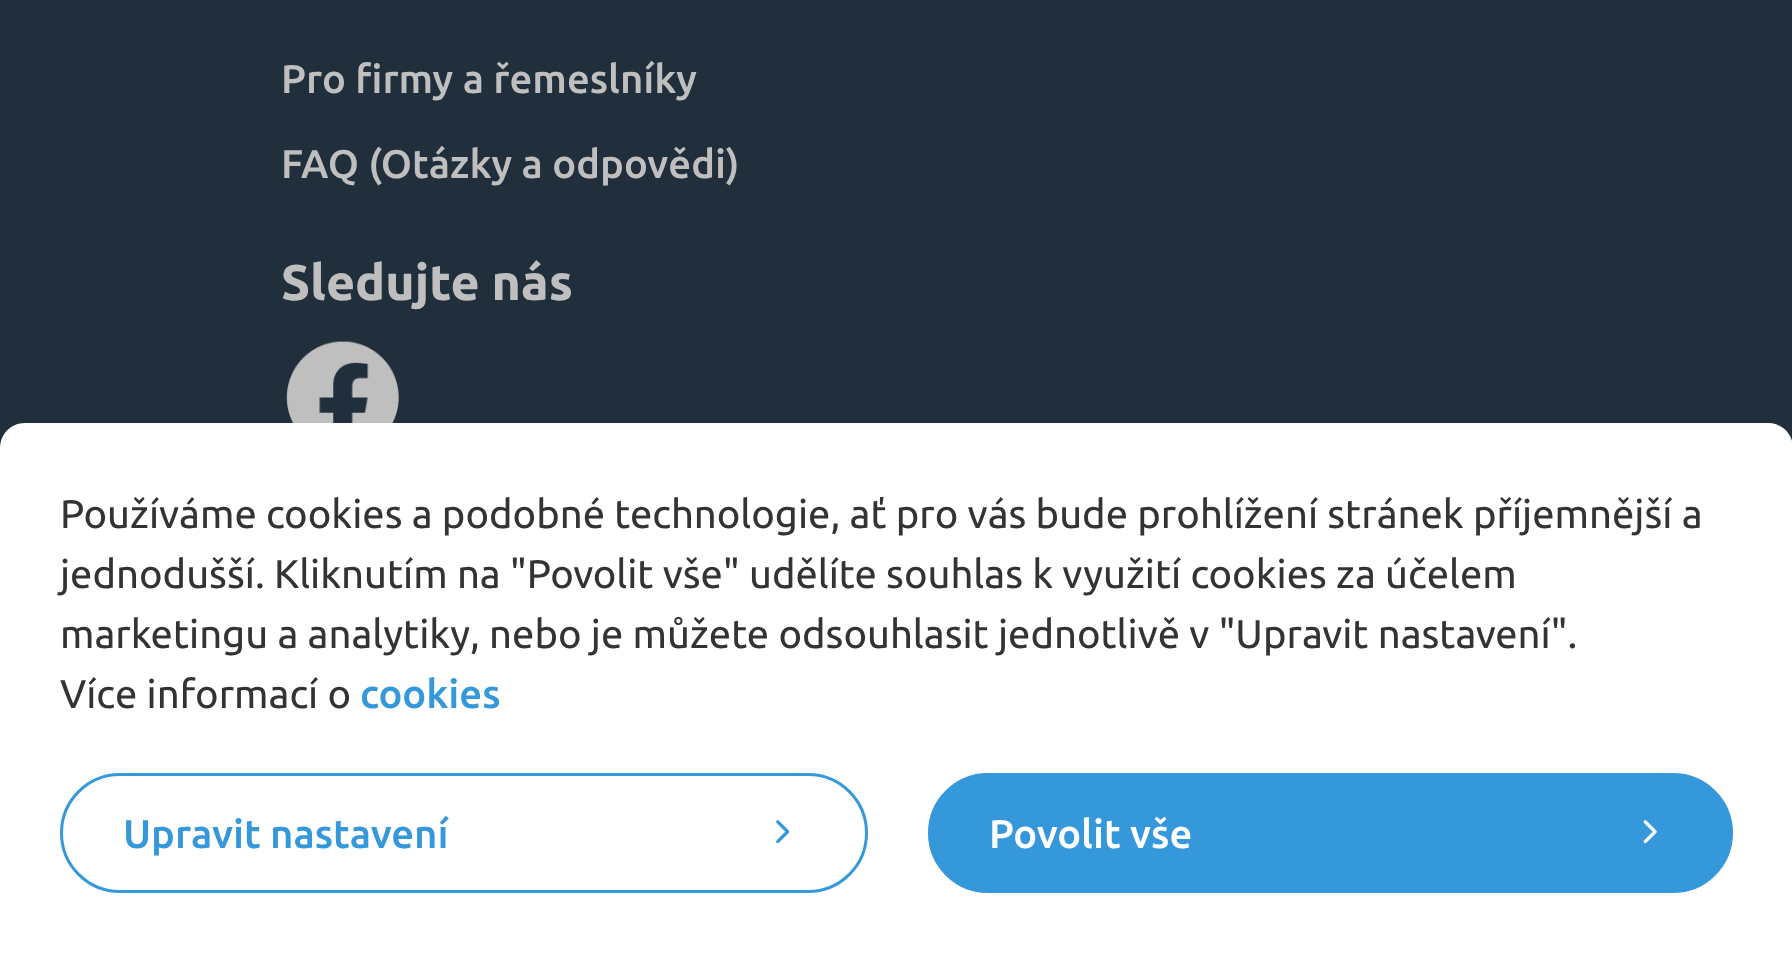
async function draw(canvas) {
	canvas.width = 1792;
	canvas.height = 976;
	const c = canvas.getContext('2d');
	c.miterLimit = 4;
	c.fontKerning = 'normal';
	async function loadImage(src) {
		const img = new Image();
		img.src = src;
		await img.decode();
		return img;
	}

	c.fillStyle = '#212f3c';
	c.fillRect(0, 0, 1792, 976);
	c.font = '500 40px Ubuntu';
	c.fillStyle = '#bfbfbf';
	c.fillText('Pro firmy a řemeslníky', 281, 93);
	c.fillText('FAQ (Otázky a odpovědi)', 281, 178);
	c.font = 'bold 50px Ubuntu';
	c.fillText('Sledujte nás', 281, 300);
	c.drawImage(await loadImage('img1.png'), 286, 341, 113, 82);
	c.fillStyle = '#fff';
	c.beginPath();
	c.moveTo(25, 423);
	c.lineTo(1768, 423);
	c.bezierCurveTo(1782, 423, 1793, 434, 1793, 448);
	c.lineTo(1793, 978);
	c.lineTo(0, 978);
	c.lineTo(0, 448);
	c.bezierCurveTo(0, 434, 11, 423, 25, 423);
	c.closePath();
	c.fill();
	c.font = '40px Ubuntu';
	c.fillStyle = '#333';
	for (const [text, x, y] of [
		['Používáme cookies a podobné technologie, ať pro vás bude prohlížení stránek příjemnější a', 60, 528],
		['jednodušší. Kliknutím na "Povolit vše" udělíte souhlas k využití cookies za účelem', 60, 588],
		['marketingu a analytiky, nebo je můžete odsouhlasit jednotlivě v "Upravit nastavení".', 60, 648],
		['Více informací o', 60, 708],
	]) {
		c.fillText(text, x, y);
	}
	c.font = '500 40px Ubuntu';
	c.fillStyle = '#3498db';
	c.fillText('cookies', 360, 708);
	c.beginPath();
	c.roundRect(61.5, 774.5, 805, 117, 58.5);
	c.strokeStyle = '#3498db';
	c.lineWidth = 3;
	c.stroke();
	c.fillText('Upravit nastavení', 123, 848);
	c.drawImage(await loadImage('img2.png'), 776, 820, 14, 24);
	c.beginPath();
	c.roundRect(929.5, 774.5, 802, 117, 58.5);
	c.fill();
	c.stroke();
	c.fillStyle = '#fff';
	c.fillText('Povolit vše', 989, 848);
	c.drawImage(await loadImage('img3.png'), 1643, 820, 14, 24);
}

draw(document.querySelector('canvas'));
